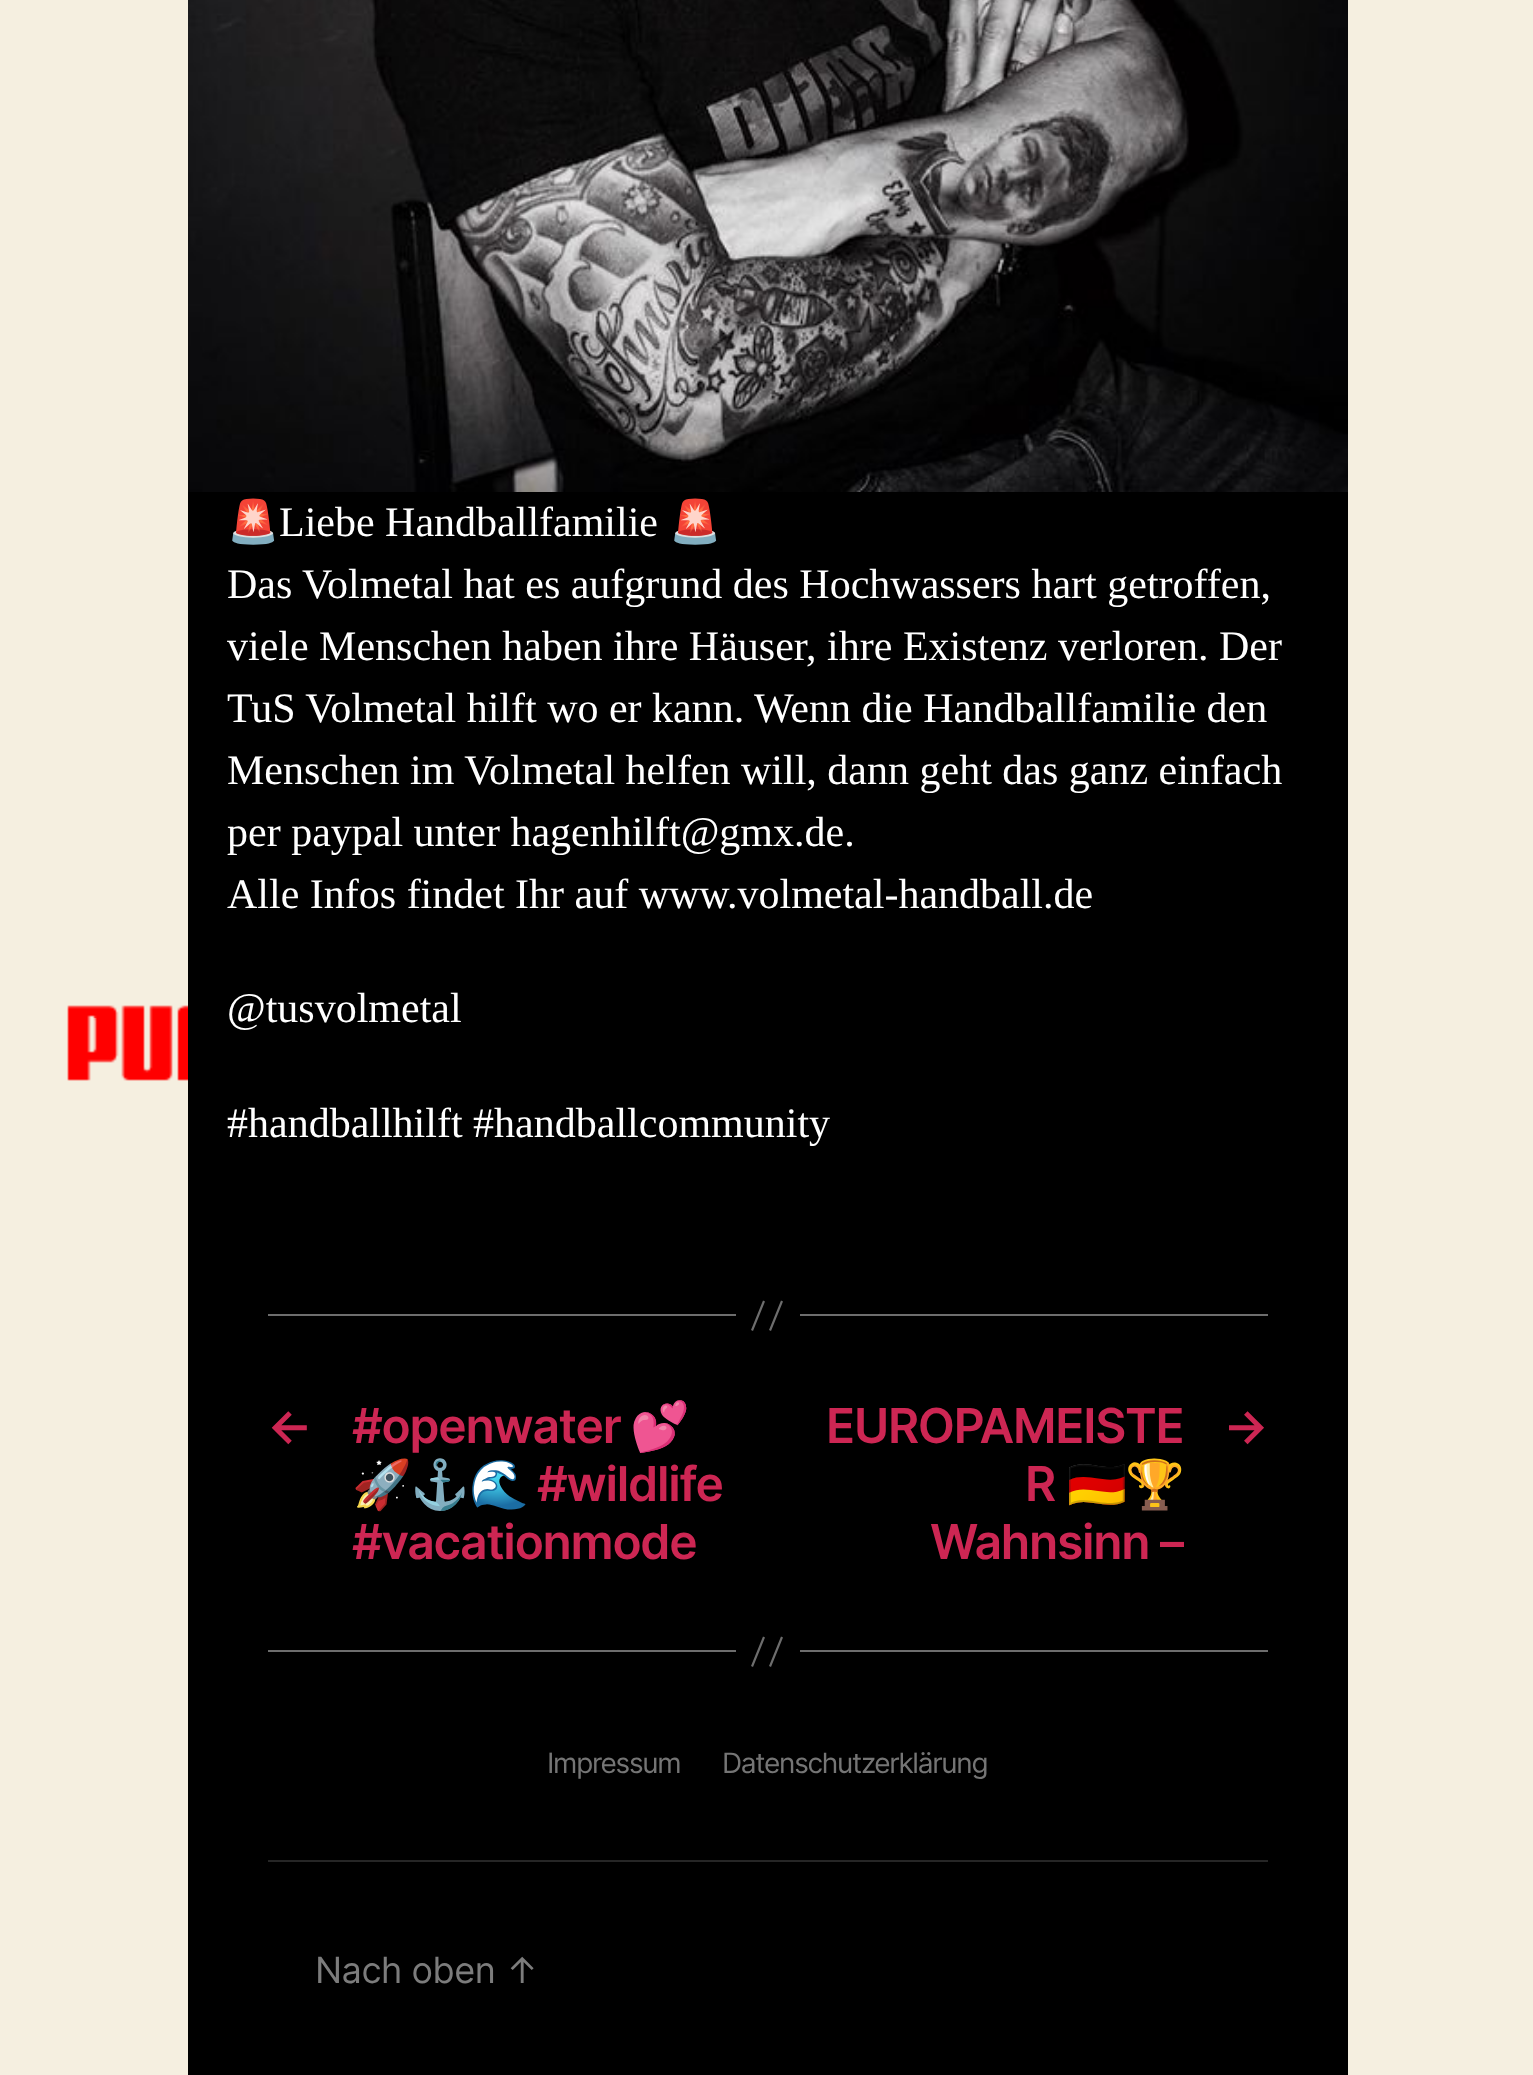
async function draw(canvas) {
	canvas.width = 1533;
	canvas.height = 2075;
	const c = canvas.getContext('2d');
	c.miterLimit = 4;
	c.fontKerning = 'normal';
	async function loadImage(src) {
		const img = new Image();
		img.src = src;
		await img.decode();
		return img;
	}

	c.fillStyle = '#f5efe0';
	c.fillRect(0, 0, 1533, 2075);
	c.drawImage(await loadImage('img1.png'), 67, 1005, 121, 76);
	c.drawImage(await loadImage('img2.png'), 188, 0, 1160, 492);
	c.fillStyle = '#000';
	c.fillRect(188, 492, 1160, 1583);
	c.font = '42px Noto Color Emoji';
	c.fillStyle = '#fff';
	c.fillText('🚨', 227, 536);
	c.font = '42px Liberation Serif';
	c.fillText('Liebe Handballfamilie', 279, 536);
	c.font = '42px Noto Color Emoji';
	c.fillText('🚨', 669, 536);
	c.font = '42px Liberation Serif';
	for (const [text, x, y] of [
		['Das Volmetal hat es aufgrund des Hochwassers hart getroffen,', 227, 598],
		['viele Menschen haben ihre Häuser, ihre Existenz verloren. Der', 227, 660],
		['TuS Volmetal hilft wo er kann. Wenn die Handballfamilie den', 227, 722],
		['Menschen im Volmetal helfen will, dann geht das ganz einfach', 227, 784],
		['per paypal unter hagenhilft@gmx.de.', 227, 846],
		['Alle Infos findet Ihr auf www.volmetal-handball.de', 227, 908],
		['@tusvolmetal', 227, 1022],
		['#handballhilft #handballcommunity', 227, 1137],
	]) {
		c.fillText(text, x, y);
	}
	c.fillStyle = '#6d6d6d';
	c.fillRect(800, 1314, 468, 2);
	c.fillRect(268, 1314, 468, 2);
	c.beginPath();
	c.moveTo(763, 1300.5);
	c.lineTo(765, 1301.5);
	c.lineTo(753, 1331);
	c.lineTo(751, 1330);
	c.closePath();
	c.moveTo(781, 1300.5);
	c.lineTo(783, 1301.5);
	c.lineTo(771, 1331);
	c.lineTo(769, 1330);
	c.closePath();
	c.fill();
	c.letterSpacing = '-1.25px';
	c.font = '600 48px Inter';
	c.fillStyle = '#cd2653';
	c.fillText('←', 267, 1443);
	c.fillText('#openwater', 352, 1443);
	c.font = 'bold 48px Noto Color Emoji';
	c.fillText('💕', 630, 1443);
	c.fillText('🚀⚓️🌊', 352, 1501);
	c.font = '600 48px Inter';
	for (const [text, x, y] of [
		['#wildlife', 537, 1501],
		['#vacationmode', 352, 1559],
		['EUROPAMEISTE', 826, 1443],
		['R', 1025, 1501],
	]) {
		c.fillText(text, x, y);
	}
	c.font = 'bold 48px Noto Color Emoji';
	c.fillText('🇩🇪🏆', 1067, 1501);
	c.font = '600 48px Inter';
	c.fillText('Wahnsinn –', 930, 1559);
	c.fillText('→', 1223, 1443);
	c.fillStyle = '#6d6d6d';
	c.fillRect(800, 1650, 468, 2);
	c.fillRect(268, 1650, 468, 2);
	c.beginPath();
	c.moveTo(763, 1636.5);
	c.lineTo(765, 1637.5);
	c.lineTo(753, 1667);
	c.lineTo(751, 1666);
	c.closePath();
	c.moveTo(781, 1636.5);
	c.lineTo(783, 1637.5);
	c.lineTo(771, 1667);
	c.lineTo(769, 1666);
	c.closePath();
	c.fill();
	c.fillStyle = '#262626';
	c.fillRect(268, 1860, 1000, 2);
	c.letterSpacing = '-1.3px';
	c.font = '28px Inter';
	c.fillStyle = '#757575';
	c.fillText('Impressum', 547, 1773);
	c.fillText('Datenschutzerklärung', 722, 1773);
	c.letterSpacing = '-0.5px';
	c.font = '36px Inter';
	c.fillStyle = '#7c7c7c';
	c.fillText('Nach oben ↑', 315, 1983);
}

draw(document.querySelector('canvas'));
